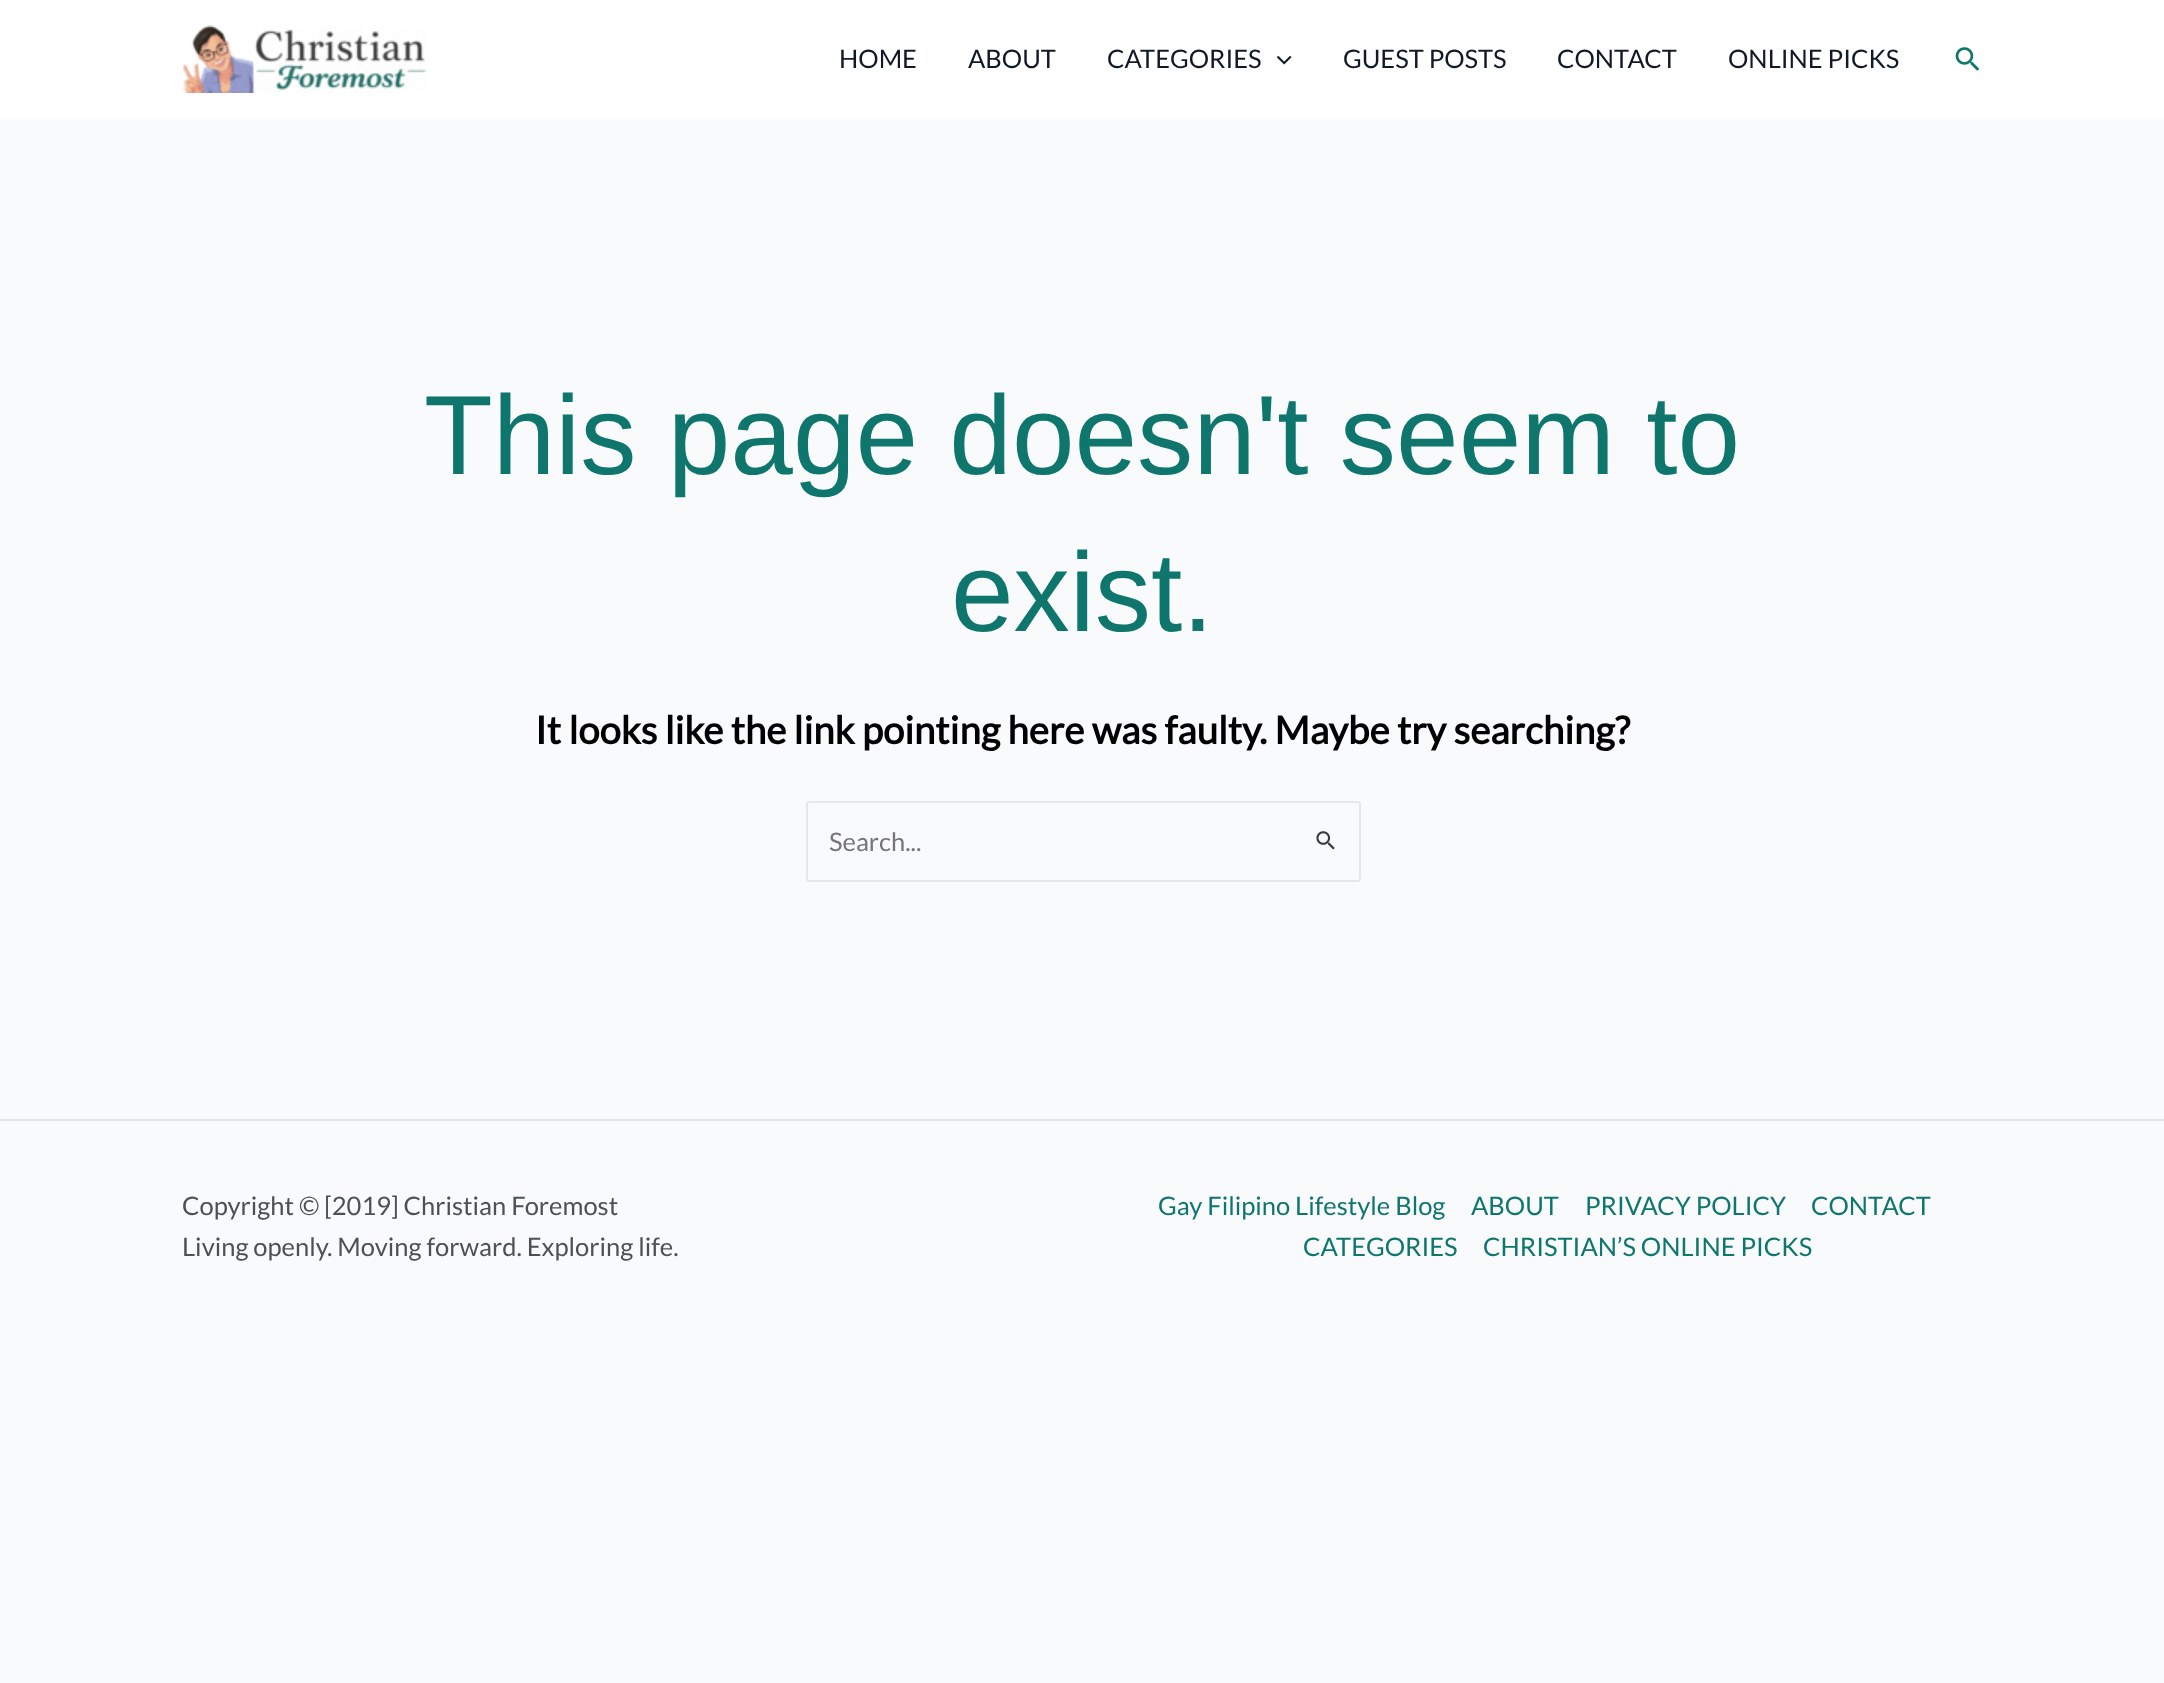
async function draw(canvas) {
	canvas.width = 2164;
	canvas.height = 1683;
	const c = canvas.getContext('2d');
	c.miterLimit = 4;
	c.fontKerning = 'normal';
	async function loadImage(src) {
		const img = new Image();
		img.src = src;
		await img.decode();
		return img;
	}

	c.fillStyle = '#f9fafb';
	c.fillRect(0, 0, 2164, 1683);
	c.fillStyle = '#fff';
	c.fillRect(0, 0, 2164, 119);
	c.drawImage(await loadImage('img1.png'), 183, 25, 246, 68);
	c.font = '25.5px Lato';
	c.fillStyle = '#111827';
	for (const [text, x, y] of [
		['HOME', 839, 68],
		['ABOUT', 968, 68],
		['CATEGORIES', 1107, 68],
	]) {
		c.fillText(text, x, y);
	}
	c.drawImage(await loadImage('img2.png'), 1277, 55, 15, 10);
	for (const [text, x, y] of [
		['GUEST POSTS', 1343, 68],
		['CONTACT', 1557, 68],
		['ONLINE PICKS', 1728, 68],
	]) {
		c.fillText(text, x, y);
	}
	c.drawImage(await loadImage('img3.png'), 1955, 47, 25, 24);
	c.font = '112.5px Liberation Sans';
	c.fillStyle = '#0f766e';
	c.fillText('This page doesn\'t seem to', 424, 474);
	c.fillText('exist.', 951, 631);
	c.font = 'bold 38.25px Lato';
	c.fillStyle = '#000';
	c.fillText('It looks like the link pointing here was faulty. Maybe try searching?', 535, 744);
	c.beginPath();
	c.roundRect(807, 802, 553, 79, 2);
	c.strokeStyle = '#e5e7eb';
	c.lineWidth = 2;
	c.stroke();
	c.font = '25.5px Lato';
	c.fillStyle = '#757575';
	c.fillText('Search...', 829, 851);
	c.drawImage(await loadImage('img4.png'), 1316, 831, 19, 19);
	c.fillStyle = '#e4e5e6';
	c.fillRect(0, 1119, 2164, 2);
	c.fillStyle = '#4c5253';
	c.fillText('Copyright © [2019] Christian Foremost', 182, 1215);
	c.fillText('Living openly. Moving forward. Exploring life.', 182, 1256);
	c.fillStyle = '#0f766e';
	for (const [text, x, y] of [
		['Gay Filipino Lifestyle Blog', 1158, 1215],
		['ABOUT', 1471, 1215],
		['PRIVACY POLICY', 1585, 1215],
		['CONTACT', 1811, 1215],
		['CATEGORIES', 1303, 1256],
		['CHRISTIAN’S ONLINE PICKS', 1483, 1256],
	]) {
		c.fillText(text, x, y);
	}
}

draw(document.querySelector('canvas'));
